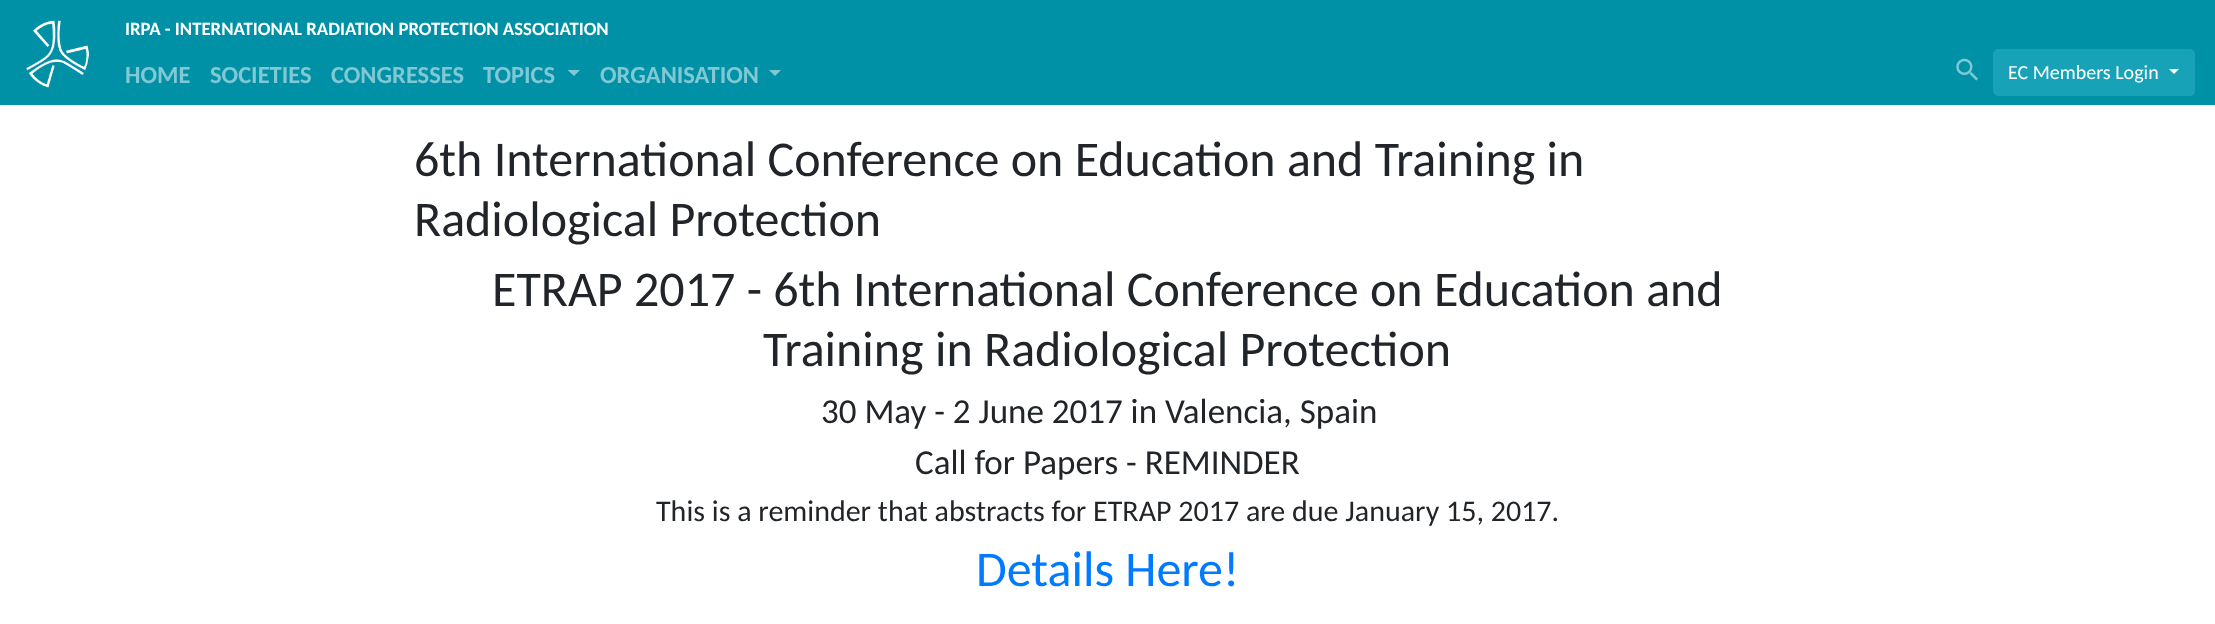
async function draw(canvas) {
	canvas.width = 2215;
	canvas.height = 624;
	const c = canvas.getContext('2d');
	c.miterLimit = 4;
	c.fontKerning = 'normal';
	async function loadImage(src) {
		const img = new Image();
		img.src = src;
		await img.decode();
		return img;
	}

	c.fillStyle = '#fff';
	c.fillRect(0, 0, 2215, 624);
	c.fillStyle = '#0091a6';
	c.fillRect(0, 0, 2215, 105);
	c.drawImage(await loadImage('img1.png'), 26, 20, 63, 68);
	c.font = 'bold 18.75px Carlito';
	c.fillStyle = '#fff';
	c.fillText('IRPA - INTERNATIONAL RADIATION PROTECTION ASSOCIATION', 125, 35);
	c.font = 'bold 24.5px Carlito';
	c.fillStyle = '#80c8d3';
	for (const [text, x, y] of [
		['HOME', 125, 83],
		['SOCIETIES', 210, 83],
		['CONGRESSES', 331, 83],
		['TOPICS', 483, 83],
	]) {
		c.fillText(text, x, y);
	}
	c.beginPath();
	c.moveTo(567.5, 70);
	c.lineTo(580, 70);
	c.lineTo(574, 76);
	c.closePath();
	c.fill();
	c.fillText('ORGANISATION', 600, 83);
	c.beginPath();
	c.moveTo(769, 70);
	c.lineTo(781, 70);
	c.lineTo(775, 76);
	c.closePath();
	c.fill();
	c.drawImage(await loadImage('img2.png'), 1956, 58, 22, 23);
	c.fillStyle = '#17a2b8';
	c.beginPath();
	c.roundRect(1993.5, 49.5, 201, 46, 4.5);
	c.fill();
	c.strokeStyle = '#17a2b8';
	c.stroke();
	c.font = '20px Carlito';
	c.fillStyle = '#fff';
	c.fillText('EC Members Login', 2008, 79);
	c.beginPath();
	c.moveTo(2169, 69);
	c.lineTo(2179, 69);
	c.lineTo(2174, 74);
	c.closePath();
	c.fill();
	c.font = '50px Carlito';
	c.fillStyle = '#212529';
	for (const [text, x, y] of [
		['6th International Conference on Education and Training in', 414, 176],
		['Radiological Protection', 414, 236],
		['ETRAP 2017 - 6th International Conference on Education and', 492, 306],
		['Training in Radiological Protection', 763, 366],
	]) {
		c.fillText(text, x, y);
	}
	c.font = '35px Carlito';
	c.fillText('30 May - 2 June 2017 in Valencia, Spain', 821, 423);
	c.fillText('Call for Papers - REMINDER', 915, 474);
	c.font = '30px Carlito';
	c.fillText('This is a reminder that abstracts for ETRAP 2017 are due January 15, 2017.', 656, 521);
	c.font = '50px Carlito';
	c.fillStyle = '#007bff';
	c.fillText('Details Here!', 976, 586);
}

draw(document.querySelector('canvas'));
